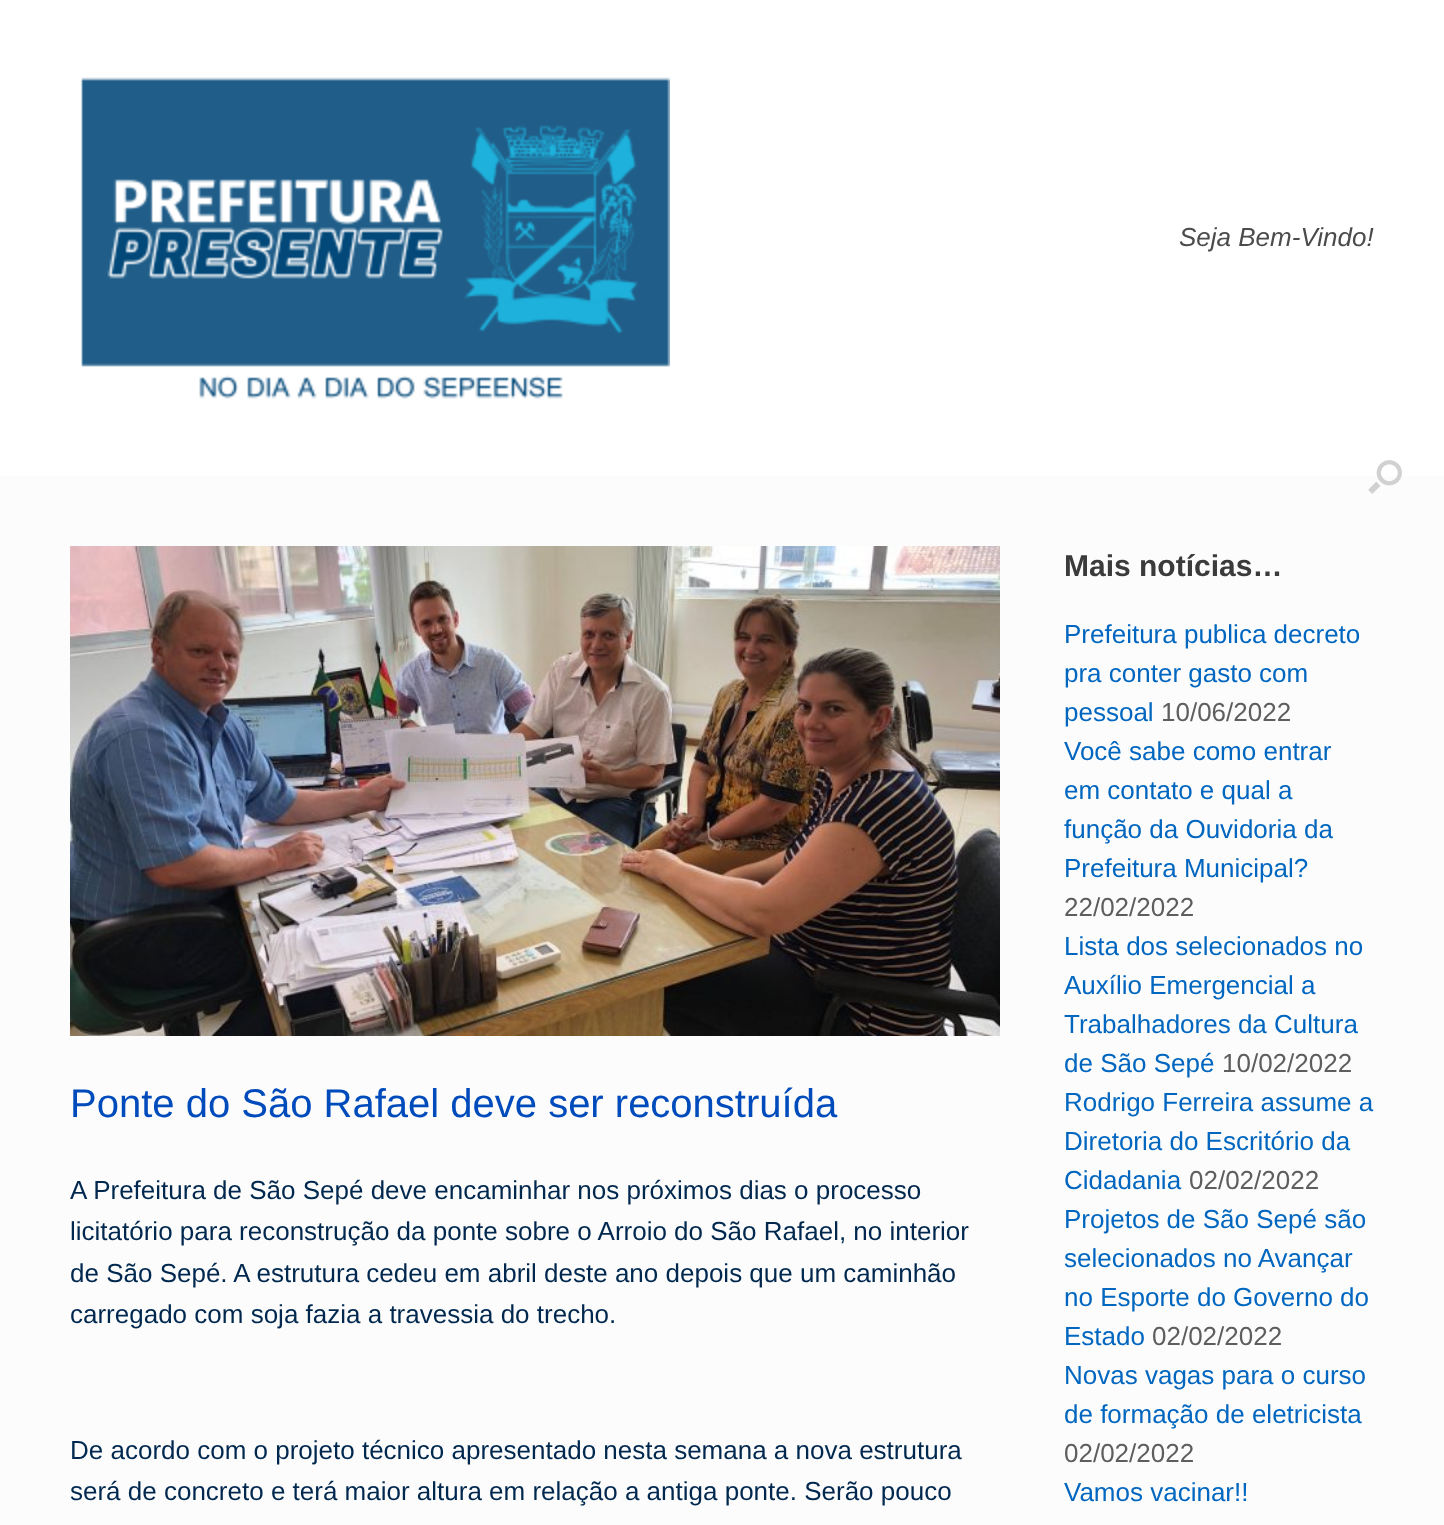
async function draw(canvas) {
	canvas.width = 1444;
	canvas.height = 1525;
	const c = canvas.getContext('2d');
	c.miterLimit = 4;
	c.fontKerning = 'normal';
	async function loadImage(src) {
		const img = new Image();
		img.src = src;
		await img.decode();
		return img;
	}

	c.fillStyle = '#fff';
	c.fillRect(0, 0, 1444, 1525);
	c.drawImage(await loadImage('img1.png'), 81, 77, 589, 322);
	c.font = 'italic 26px Liberation Sans';
	c.fillStyle = '#4b4b4b';
	c.fillText('Seja Bem-Vindo!', 1179, 246);
	c.fillStyle = '#fcfcfc';
	c.fillRect(0, 476, 1444, 1049);
	c.drawImage(await loadImage('img2.png'), 1368, 460, 34, 34);
	c.drawImage(await loadImage('img3.png'), 70, 546, 930, 490);
	c.font = '40px Liberation Sans';
	c.fillStyle = '#004bbc';
	c.fillText('Ponte do São Rafael deve ser reconstruída', 70, 1117);
	c.font = '26px Liberation Sans';
	c.fillStyle = '#00284f';
	for (const [text, x, y] of [
		['A Prefeitura de São Sepé deve encaminhar nos próximos dias o processo', 70, 1199],
		['licitatório para reconstrução da ponte sobre o Arroio do São Rafael, no interior', 70, 1240],
		['de São Sepé. A estrutura cedeu em abril deste ano depois que um caminhão', 70, 1282],
		['carregado com soja fazia a travessia do trecho.', 70, 1323],
		['De acordo com o projeto técnico apresentado nesta semana a nova estrutura', 70, 1459],
		['será de concreto e terá maior altura em relação a antiga ponte. Serão pouco', 70, 1500],
	]) {
		c.fillText(text, x, y);
	}
	c.font = 'bold 30px Liberation Sans';
	c.fillStyle = '#3b3b3b';
	c.fillText('Mais notícias…', 1064, 576);
	c.font = '26px Liberation Sans';
	c.fillStyle = '#0066bf';
	for (const [text, x, y] of [
		['Prefeitura publica decreto', 1064, 643],
		['pra conter gasto com', 1064, 682],
		['pessoal', 1064, 721],
	]) {
		c.fillText(text, x, y);
	}
	c.fillStyle = '#5e5e5e';
	c.fillText('10/06/2022', 1161, 721);
	c.fillStyle = '#0066bf';
	for (const [text, x, y] of [
		['Você sabe como entrar', 1064, 760],
		['em contato e qual a', 1064, 799],
		['função da Ouvidoria da', 1064, 838],
		['Prefeitura Municipal?', 1064, 877],
	]) {
		c.fillText(text, x, y);
	}
	c.fillStyle = '#5e5e5e';
	c.fillText('22/02/2022', 1064, 916);
	c.fillStyle = '#0066bf';
	for (const [text, x, y] of [
		['Lista dos selecionados no', 1064, 955],
		['Auxílio Emergencial a', 1064, 994],
		['Trabalhadores da Cultura', 1064, 1033],
		['de São Sepé', 1064, 1072],
	]) {
		c.fillText(text, x, y);
	}
	c.fillStyle = '#5e5e5e';
	c.fillText('10/02/2022', 1222, 1072);
	c.fillStyle = '#0066bf';
	for (const [text, x, y] of [
		['Rodrigo Ferreira assume a', 1064, 1111],
		['Diretoria do Escritório da', 1064, 1150],
		['Cidadania', 1064, 1189],
	]) {
		c.fillText(text, x, y);
	}
	c.fillStyle = '#5e5e5e';
	c.fillText('02/02/2022', 1189, 1189);
	c.fillStyle = '#0066bf';
	for (const [text, x, y] of [
		['Projetos de São Sepé são', 1064, 1228],
		['selecionados no Avançar', 1064, 1267],
		['no Esporte do Governo do', 1064, 1306],
		['Estado', 1064, 1345],
	]) {
		c.fillText(text, x, y);
	}
	c.fillStyle = '#5e5e5e';
	c.fillText('02/02/2022', 1152, 1345);
	c.fillStyle = '#0066bf';
	c.fillText('Novas vagas para o curso', 1064, 1384);
	c.fillText('de formação de eletricista', 1064, 1423);
	c.fillStyle = '#5e5e5e';
	c.fillText('02/02/2022', 1064, 1462);
	c.fillStyle = '#0066bf';
	c.fillText('Vamos vacinar!!', 1064, 1501);
}

draw(document.querySelector('canvas'));
